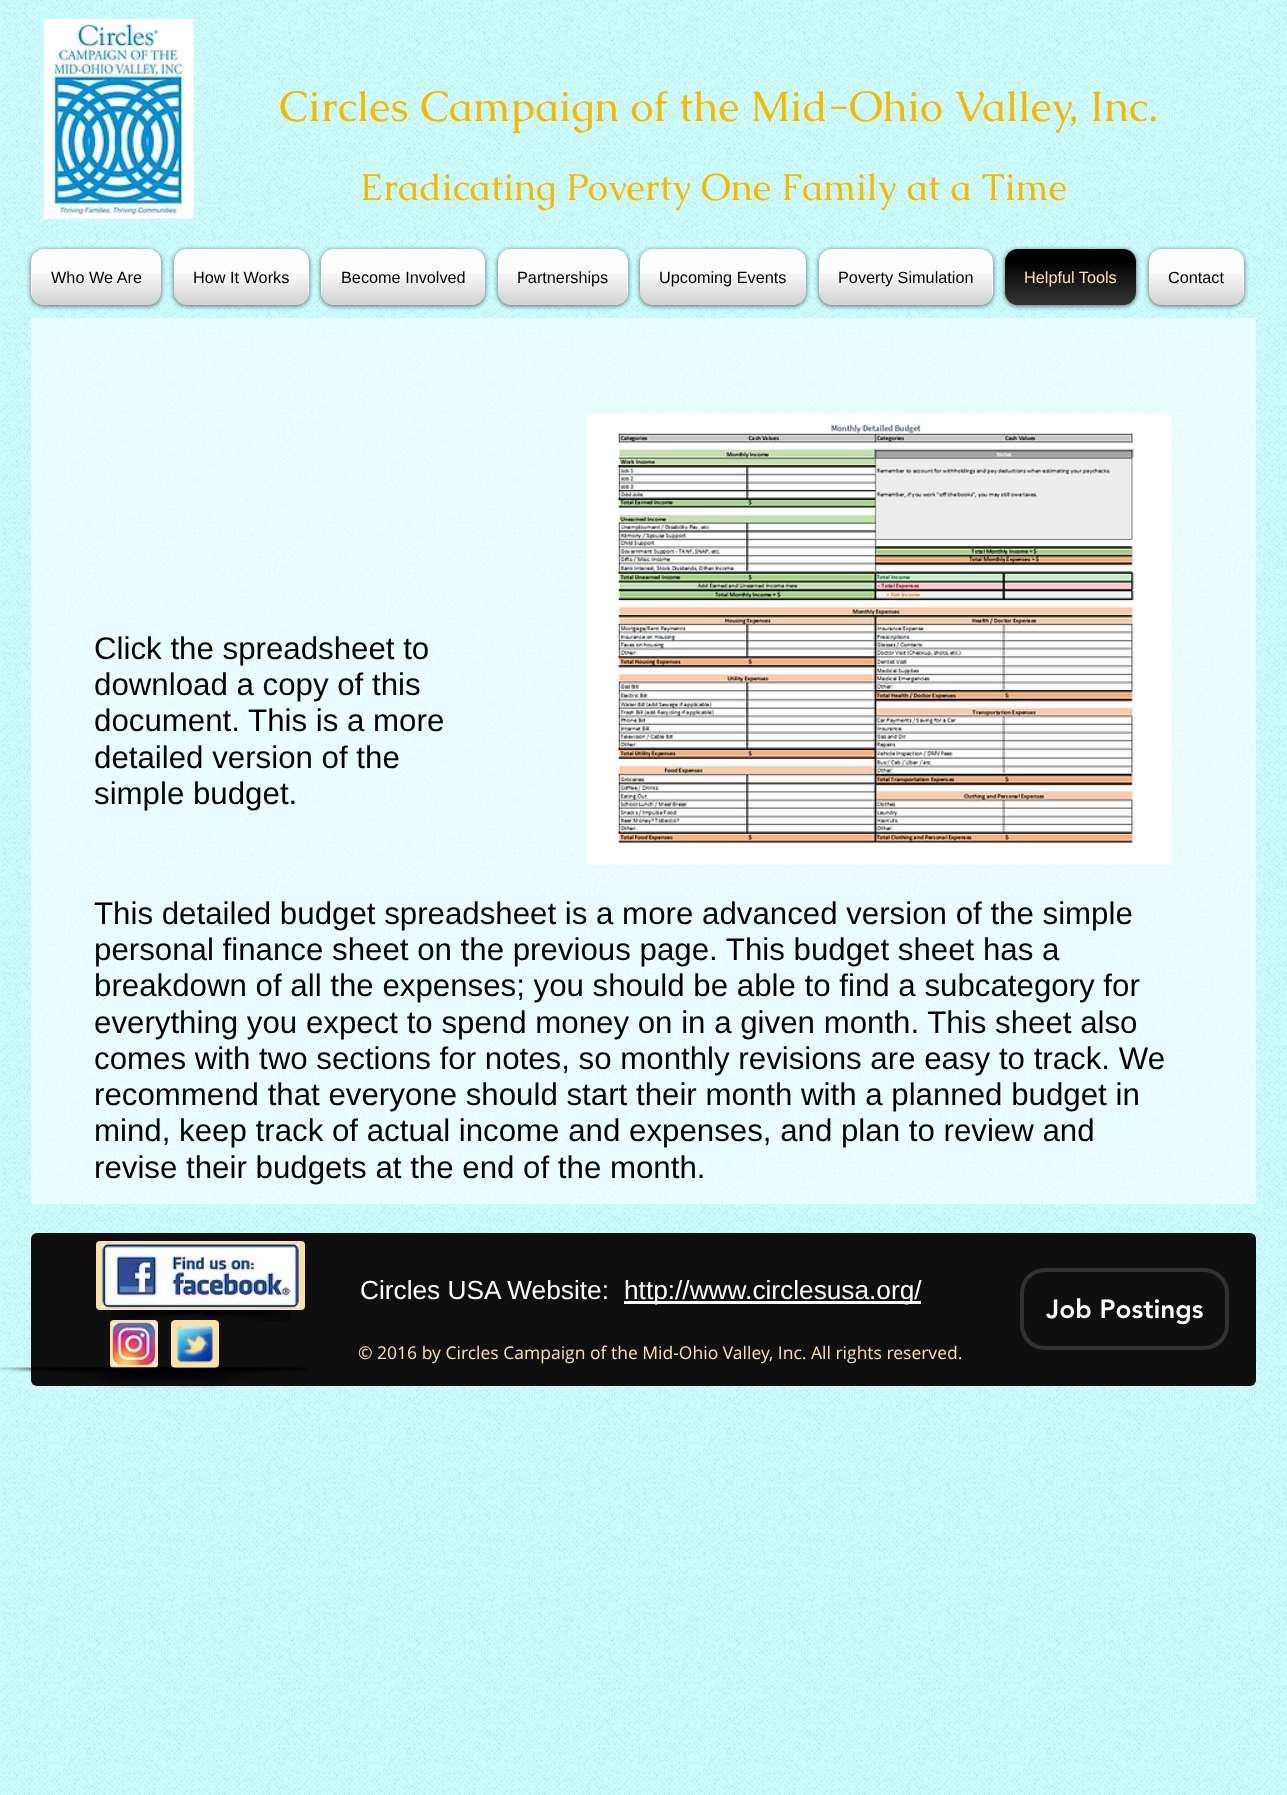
async function draw(canvas) {
	canvas.width = 1287;
	canvas.height = 1795;
	const c = canvas.getContext('2d');
	c.miterLimit = 4;
	c.fontKerning = 'normal';
	async function loadImage(src) {
		const img = new Image();
		img.src = src;
		await img.decode();
		return img;
	}

	c.fillStyle = '#cfffff';
	c.fillRect(0, 0, 1287, 1795);
	c.drawImage(await loadImage('img1.png'), 0, 0, 1287, 1795);
	c.drawImage(await loadImage('img2.png'), 44, 18, 150, 201);
	c.font = '42.5px Caudex';
	c.fillStyle = '#f7b800';
	c.fillText('Circles Campaign of the Mid-Ohio Valley, Inc.', 279, 121);
	c.font = '37.5px Caudex';
	c.fillText('Eradicating Poverty One Family at a Time', 360, 200);
	c.fillStyle = '#00000099';
	c.filter = 'blur(2.5px)';
	c.beginPath();
	c.roundRect(31, 250, 130, 56, 13);
	c.fill();
	c.filter = 'none';
	c.fillStyle = '#fefdfd';
	c.beginPath();
	c.roundRect(31, 249, 130, 56, 13);
	c.fill();
	c.drawImage(await loadImage('img3.png'), 151, 249, 9, 7);
	c.drawImage(await loadImage('img4.png'), 31, 273, 130, 32);
	c.font = '16.25px Liberation Sans';
	c.fillStyle = '#000';
	c.fillText('Who We Are', 51, 283);
	c.fillStyle = '#00000099';
	c.filter = 'blur(2.5px)';
	c.beginPath();
	c.roundRect(174, 250, 135, 56, 13);
	c.fill();
	c.filter = 'none';
	c.fillStyle = '#fefdfd';
	c.beginPath();
	c.roundRect(174, 249, 135, 56, 13);
	c.fill();
	c.drawImage(await loadImage('img5.png'), 175, 249, 9, 7);
	c.drawImage(await loadImage('img6.png'), 174, 273, 135, 32);
	c.fillStyle = '#000';
	c.fillText('How It Works', 193, 283);
	c.fillStyle = '#00000099';
	c.filter = 'blur(2.5px)';
	c.beginPath();
	c.roundRect(321, 250, 164, 56, 13);
	c.fill();
	c.filter = 'none';
	c.fillStyle = '#fefdfd';
	c.beginPath();
	c.roundRect(321, 249, 164, 56, 13);
	c.fill();
	c.fillStyle = '#d3f2f2';
	c.fillRect(478, 250, 1, 1);
	c.drawImage(await loadImage('img7.png'), 321, 273, 164, 32);
	c.fillStyle = '#000';
	c.fillText('Become Involved', 341, 283);
	c.fillStyle = '#00000099';
	c.filter = 'blur(2.5px)';
	c.beginPath();
	c.roundRect(498, 250, 130, 56, 13);
	c.fill();
	c.filter = 'none';
	c.fillStyle = '#fefdfd';
	c.beginPath();
	c.roundRect(498, 249, 130, 56, 13);
	c.fill();
	c.drawImage(await loadImage('img8.png'), 498, 249, 10, 10);
	c.drawImage(await loadImage('img9.png'), 498, 273, 129, 32);
	c.fillStyle = '#000';
	c.fillText('Partnerships', 517, 283);
	c.fillStyle = '#00000099';
	c.filter = 'blur(2.5px)';
	c.beginPath();
	c.roundRect(640, 250, 166, 56, 13);
	c.fill();
	c.filter = 'none';
	c.fillStyle = '#fefdfd';
	c.beginPath();
	c.roundRect(640, 249, 166, 56, 13);
	c.fill();
	c.drawImage(await loadImage('img10.png'), 646, 249, 159, 7);
	c.drawImage(await loadImage('img11.png'), 640, 273, 166, 32);
	c.fillStyle = '#000';
	c.fillText('Upcoming Events', 659, 283);
	c.fillStyle = '#00000099';
	c.filter = 'blur(2.5px)';
	c.beginPath();
	c.roundRect(819, 250, 174, 56, 13);
	c.fill();
	c.filter = 'none';
	c.fillStyle = '#fefdfd';
	c.beginPath();
	c.roundRect(819, 249, 174, 56, 13);
	c.fill();
	c.drawImage(await loadImage('img12.png'), 820, 249, 9, 7);
	c.drawImage(await loadImage('img13.png'), 819, 273, 173, 32);
	c.fillStyle = '#000';
	c.fillText('Poverty Simulation', 838, 283);
	c.fillStyle = '#00000099';
	c.filter = 'blur(2.5px)';
	c.beginPath();
	c.roundRect(1005, 250, 131, 56, 13);
	c.fill();
	c.filter = 'none';
	c.fillStyle = '#000';
	c.beginPath();
	c.roundRect(1005, 249, 131, 56, 13);
	c.fill();
	c.drawImage(await loadImage('img14.png'), 1005, 249, 131, 12);
	c.drawImage(await loadImage('img15.png'), 1005, 264, 131, 41);
	c.fillStyle = '#f9e2a6';
	c.fillText('Helpful Tools', 1024, 283);
	c.fillStyle = '#00000099';
	c.filter = 'blur(2.5px)';
	c.beginPath();
	c.roundRect(1149, 250, 95, 56, 13);
	c.fill();
	c.filter = 'none';
	c.fillStyle = '#fefdfd';
	c.beginPath();
	c.roundRect(1149, 249, 95, 56, 13);
	c.fill();
	c.drawImage(await loadImage('img16.png'), 1150, 249, 9, 7);
	c.drawImage(await loadImage('img17.png'), 1149, 273, 95, 32);
	c.fillStyle = '#000';
	c.fillText('Contact', 1168, 283);
	c.fillStyle = '#ffffff99';
	c.fillRect(31, 318, 1225, 886);
	c.font = '31.25px Liberation Sans';
	c.fillStyle = '#000';
	for (const [text, x, y] of [
		['Click the spreadsheet to', 94, 659],
		['download a copy of this', 94, 695],
		['document. This is a more', 94, 731],
		['detailed version of the', 94, 768],
		['simple budget.', 94, 804],
	]) {
		c.fillText(text, x, y);
	}
	c.drawImage(await loadImage('img18.png'), 586, 413, 586, 452);
	for (const [text, x, y] of [
		['This detailed budget spreadsheet is a more advanced version of the simple', 94, 924],
		['personal finance sheet on the previous page. This budget sheet has a', 94, 960],
		['breakdown of all the expenses; you should be able to find a subcategory for', 94, 996],
		['everything you expect to spend money on in a given month. This sheet also', 94, 1033],
		['comes with two sections for notes, so monthly revisions are easy to track. We', 94, 1069],
		['recommend that everyone should start their month with a planned budget in', 94, 1105],
		['mind, keep track of actual income and expenses, and plan to review and', 94, 1141],
		['revise their budgets at the end of the month.', 94, 1178],
	]) {
		c.fillText(text, x, y);
	}
	c.fillStyle = '#0f0f0f';
	c.beginPath();
	c.roundRect(31, 1233, 1225, 153, 6);
	c.fill();
	c.fillStyle = '#f9e2a6';
	c.beginPath();
	c.roundRect(97.5, 1242.5, 206, 66, 2.5);
	c.fill();
	c.strokeStyle = '#f9e2a6';
	c.lineWidth = 3;
	c.stroke();
	c.drawImage(await loadImage('img19.png'), 102, 1244, 197, 64);
	c.drawImage(await loadImage('img20.png'), 110, 1310, 121, 11);
	c.drawImage(await loadImage('img21.png'), 203, 1310, 88, 11);
	c.font = '26.25px Liberation Sans';
	c.fillStyle = '#fefdfd';
	c.fillText('Circles USA Website:', 360, 1299);
	c.fillRect(624, 1301, 297, 3);
	c.fillText('http://www.circlesusa.org/', 624, 1299);
	c.beginPath();
	c.roundRect(1022, 1270, 205, 78, 23);
	c.strokeStyle = '#323232';
	c.lineWidth = 4;
	c.stroke();
	c.font = '900 26.25px "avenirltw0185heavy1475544"';
	c.fillText('Job Postings', 1046, 1318);
	c.fillStyle = '#f9e2a6';
	c.beginPath();
	c.roundRect(111.5, 1321.5, 45, 45, 2.5);
	c.fill();
	c.strokeStyle = '#f9e2a6';
	c.lineWidth = 3;
	c.stroke();
	c.drawImage(await loadImage('img22.png'), 112, 1322, 43, 43);
	c.drawImage(await loadImage('img24.png'), 101, 1367, 147, 22);
	c.drawImage(await loadImage('img23.png'), 0, 1367, 166, 22);
	c.beginPath();
	c.roundRect(171.5, 1320.5, 47, 47, 3.5);
	c.fill();
	c.lineWidth = 1;
	c.stroke();
	c.drawImage(await loadImage('img25.png'), 177, 1326, 37, 37);
	c.drawImage(await loadImage('img27.png'), 163, 1367, 146, 22);
	c.drawImage(await loadImage('img26.png'), 111, 1367, 116, 22);
	c.font = '17.5px Open Sans';
	c.fillText('© 2016 by Circles Campaign of the Mid-Ohio Valley, Inc. All rights reserved.', 358, 1359);
}

draw(document.querySelector('canvas'));
